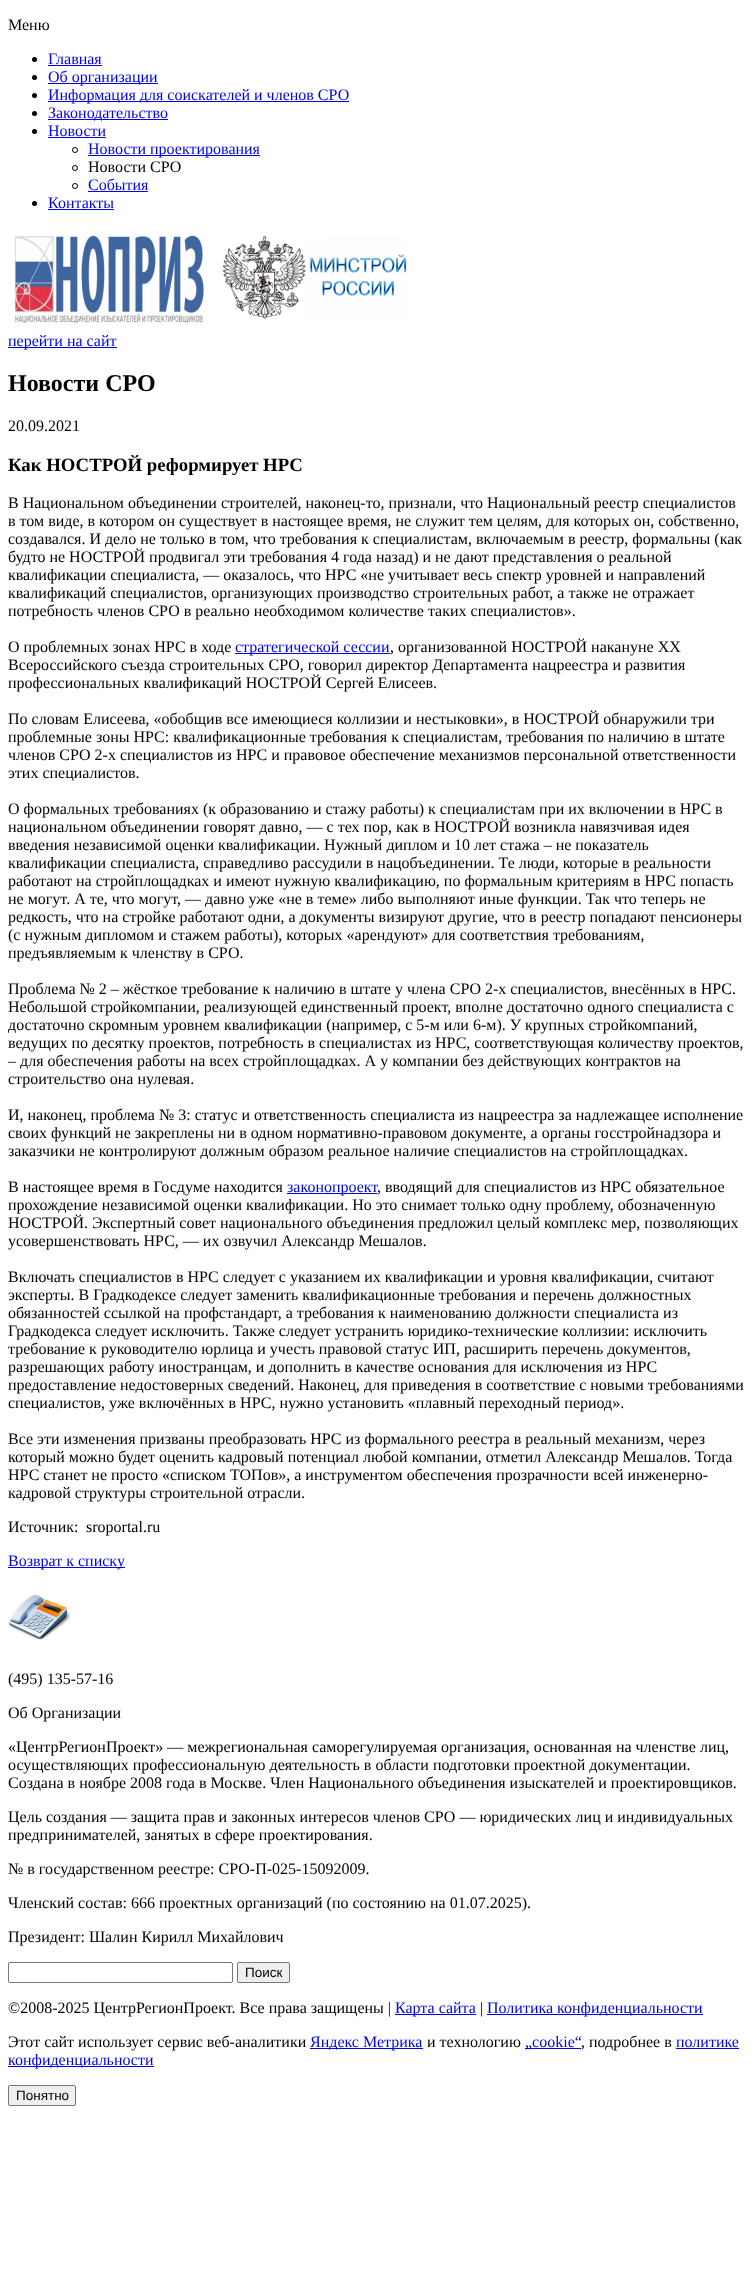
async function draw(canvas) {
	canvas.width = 755;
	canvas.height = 2281;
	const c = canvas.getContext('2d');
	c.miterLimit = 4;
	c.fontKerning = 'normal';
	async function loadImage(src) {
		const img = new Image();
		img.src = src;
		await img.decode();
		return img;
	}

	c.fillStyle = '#fff';
	c.fillRect(0, 0, 755, 2281);
	c.font = '16px Liberation Serif';
	c.fillStyle = '#000';
	c.fillText('Меню', 8, 30);
	c.beginPath();
	c.arc(34.5, 59.5, 2.5, 0, 2 * Math.PI);
	c.fill();
	c.fillStyle = '#00e';
	c.fillText('Главная', 48, 64);
	c.fillRect(48, 65, 54, 1);
	c.fillStyle = '#000';
	c.beginPath();
	c.arc(34.5, 77.5, 2.5, 0, 2 * Math.PI);
	c.fill();
	c.fillStyle = '#00e';
	c.fillRect(48, 83, 110, 1);
	c.fillText('Об организации', 48, 82);
	c.fillStyle = '#000';
	c.beginPath();
	c.arc(34.5, 95.5, 2.5, 0, 2 * Math.PI);
	c.fill();
	c.fillStyle = '#00e';
	c.fillRect(48, 101, 301, 1);
	c.fillText('Информация для соискателей и членов СРО', 48, 100);
	c.fillStyle = '#000';
	c.beginPath();
	c.arc(34.5, 113.5, 2.5, 0, 2 * Math.PI);
	c.fill();
	c.fillStyle = '#00e';
	c.fillRect(48, 119, 120, 1);
	c.fillText('Законодательство', 48, 118);
	c.fillStyle = '#000';
	c.beginPath();
	c.arc(34.5, 131.5, 2.5, 0, 2 * Math.PI);
	c.fill();
	c.fillStyle = '#00e';
	c.fillText('Новости', 48, 136);
	c.fillRect(48, 137, 58, 1);
	c.beginPath();
	c.arc(75, 150, 2.5, 0, 2 * Math.PI);
	c.strokeStyle = '#000';
	c.stroke();
	c.fillRect(88, 155, 172, 1);
	c.fillText('Новости проектирования', 88, 154);
	c.beginPath();
	c.arc(75, 168, 2.5, 0, 2 * Math.PI);
	c.stroke();
	c.fillStyle = '#000';
	c.fillText('Новости СРО', 88, 172);
	c.beginPath();
	c.arc(75, 186, 2.5, 0, 2 * Math.PI);
	c.stroke();
	c.fillStyle = '#00e';
	c.fillText('События', 88, 190);
	c.fillRect(88, 191, 60, 1);
	c.fillStyle = '#000';
	c.beginPath();
	c.arc(34.5, 203.5, 2.5, 0, 2 * Math.PI);
	c.fill();
	c.fillStyle = '#00e';
	c.fillText('Контакты', 48, 208);
	c.fillRect(48, 209, 66, 1);
	c.drawImage(await loadImage('img1.png'), 14, 235, 190, 89);
	c.drawImage(await loadImage('img2.png'), 222, 235, 185, 84);
	c.fillRect(8, 347, 109, 1);
	c.fillText('перейти на сайт', 8, 346);
	c.font = 'bold 24px Liberation Serif';
	c.fillStyle = '#000';
	c.fillText('Новости СРО', 8, 391);
	c.font = '16px Liberation Serif';
	c.fillText('20.09.2021', 8, 431);
	c.font = 'bold 18.75px Liberation Serif';
	c.fillText('Как НОСТРОЙ реформирует НРС', 8, 471);
	c.font = '16px Liberation Serif';
	for (const [text, x, y] of [
		['В Национальном объединении строителей, наконец-то, признали, что Национальный реестр специалистов', 8, 508],
		['в том виде, в котором он существует в настоящее время, не служит тем целям, для которых он, собственно,', 8, 526],
		['создавался. И дело не только в том, что требования к специалистам, включаемым в реестр, формальны (как', 8, 544],
		['будто не НОСТРОЙ продвигал эти требования 4 года назад) и не дают представления о реальной', 8, 562],
		['квалификации специалиста, — оказалось, что НРС «не учитывает весь спектр уровней и направлений', 8, 580],
		['квалификаций специалистов, организующих производство строительных работ, а также не отражает', 8, 598],
		['потребность членов СРО в реально необходимом количестве таких специалистов».', 8, 616],
		['О проблемных зонах НРС в ходе', 8, 652],
	]) {
		c.fillText(text, x, y);
	}
	c.fillStyle = '#00e';
	c.fillRect(235, 653, 155, 1);
	c.fillText('стратегической сессии', 235, 652);
	c.fillStyle = '#000';
	for (const [text, x, y] of [
		[', организованной НОСТРОЙ накануне ХХ', 390, 652],
		['Всероссийского съезда строительных СРО, говорил директор Департамента нацреестра и развития', 8, 670],
		['профессиональных квалификаций НОСТРОЙ Сергей Елисеев.', 8, 688],
		['По словам Елисеева, «обобщив все имеющиеся коллизии и нестыковки», в НОСТРОЙ обнаружили три', 8, 724],
		['проблемные зоны НРС: квалификационные требования к специалистам, требования по наличию в штате', 8, 742],
		['членов СРО 2-х специалистов из НРС и правовое обеспечение механизмов персональной ответственности', 8, 760],
		['этих специалистов.', 8, 778],
		['О формальных требованиях (к образованию и стажу работы) к специалистам при их включении в НРС в', 8, 814],
		['национальном объединении говорят давно, — с тех пор, как в НОСТРОЙ возникла навязчивая идея', 8, 832],
		['введения независимой оценки квалификации. Нужный диплом и 10 лет стажа – не показатель', 8, 850],
		['квалификации специалиста, справедливо рассудили в нацобъединении. Те люди, которые в реальности', 8, 868],
		['работают на стройплощадках и имеют нужную квалификацию, по формальным критериям в НРС попасть', 8, 886],
		['не могут. А те, что могут, — давно уже «не в теме» либо выполняют иные функции. Так что теперь не', 8, 904],
		['редкость, что на стройке работают одни, а документы визируют другие, что в реестр попадают пенсионеры', 8, 922],
		['(с нужным дипломом и стажем работы), которых «арендуют» для соответствия требованиям,', 8, 940],
		['предъявляемым к членству в СРО.', 8, 958],
		['Проблема № 2 – жёсткое требование к наличию в штате у члена СРО 2-х специалистов, внесённых в НРС.', 8, 994],
		['Небольшой стройкомпании, реализующей единственный проект, вполне достаточно одного специалиста с', 8, 1012],
		['достаточно скромным уровнем квалификации (например, с 5-м или 6-м). У крупных стройкомпаний,', 8, 1030],
		['ведущих по десятку проектов, потребность в специалистах из НРС, соответствующая количеству проектов,', 8, 1048],
		['– для обеспечения работы на всех стройплощадках. А у компании без действующих контрактов на', 8, 1066],
		['строительство она нулевая.', 8, 1084],
		['И, наконец, проблема № 3: статус и ответственность специалиста из нацреестра за надлежащее исполнение', 8, 1120],
		['своих функций не закреплены ни в одном нормативно-правовом документе, а органы госстройнадзора и', 8, 1138],
		['заказчики не контролируют должным образом реальное наличие специалистов на стройплощадках.', 8, 1156],
		['В настоящее время в Госдуме находится', 8, 1192],
	]) {
		c.fillText(text, x, y);
	}
	c.fillStyle = '#00e';
	c.fillRect(287, 1193, 90, 1);
	c.fillText('законопроект', 287, 1192);
	c.fillStyle = '#000';
	for (const [text, x, y] of [
		[', вводящий для специалистов из НРС обязательное', 377, 1192],
		['прохождение независимой оценки квалификации. Но это снимает только одну проблему, обозначенную', 8, 1210],
		['НОСТРОЙ. Экспертный совет национального объединения предложил целый комплекс мер, позволяющих', 8, 1228],
		['усовершенствовать НРС, — их озвучил Александр Мешалов.', 8, 1246],
		['Включать специалистов в НРС следует с указанием их квалификации и уровня квалификации, считают', 8, 1282],
		['эксперты. В Градкодексе следует заменить квалификационные требования и перечень должностных', 8, 1300],
		['обязанностей ссылкой на профстандарт, а требования к наименованию должности специалиста из', 8, 1318],
		['Градкодекса следует исключить. Также следует устранить юридико-технические коллизии: исключить', 8, 1336],
		['требование к руководителю юрлица и учесть правовой статус ИП, расширить перечень документов,', 8, 1354],
		['разрешающих работу иностранцам, и дополнить в качестве основания для исключения из НРС', 8, 1372],
		['предоставление недостоверных сведений. Наконец, для приведения в соответствие с новыми требованиями', 8, 1390],
		['специалистов, уже включённых в НРС, нужно установить «плавный переходный период».', 8, 1408],
		['Все эти изменения призваны преобразовать НРС из формального реестра в реальный механизм, через', 8, 1444],
		['который можно будет оценить кадровый потенциал любой компании, отметил Александр Мешалов. Тогда', 8, 1462],
		['НРС станет не просто «списком ТОПов», а инструментом обеспечения прозрачности всей инженерно-', 8, 1480],
		['кадровой структуры строительной отрасли.', 8, 1498],
		['Источник:', 8, 1532],
		['sroportal.ru', 86, 1532],
	]) {
		c.fillText(text, x, y);
	}
	c.fillStyle = '#00e';
	c.fillRect(8, 1567, 117, 1);
	c.fillText('Возврат к списку', 8, 1566);
	c.drawImage(await loadImage('img3.png'), 8, 1594, 63, 47);
	c.fillStyle = '#000';
	for (const [text, x, y] of [
		['(495) 135-57-16', 8, 1684],
		['Об Организации', 8, 1718],
		['«ЦентрРегионПроект» — межрегиональная саморегулируемая организация, основанная на членстве лиц,', 8, 1752],
		['осуществляющих профессиональную деятельность в области подготовки проектной документации.', 8, 1770],
		['Создана в ноябре 2008 года в Москве. Член Национального объединения изыскателей и проектировщиков.', 8, 1788],
		['Цель создания — защита прав и законных интересов членов СРО — юридических лиц и индивидуальных', 8, 1822],
		['предпринимателей, занятых в сфере проектирования.', 8, 1840],
		['№ в государственном реестре: СРО-П-025-15092009.', 8, 1874],
		['Членский состав: 666 проектных организаций (по состоянию на 01.07.2025).', 8, 1908],
		['Президент: Шалин Кирилл Михайлович', 8, 1942],
	]) {
		c.fillText(text, x, y);
	}
	c.beginPath();
	c.roundRect(8.5, 1962.5, 224, 20, 1.5);
	c.strokeStyle = '#767676';
	c.stroke();
	c.fillStyle = '#efefef';
	c.beginPath();
	c.roundRect(237.5, 1962.5, 52, 20, 1.5);
	c.fill();
	c.stroke();
	c.font = '13.5px Liberation Sans';
	c.fillStyle = '#000';
	c.fillText('Поиск', 245, 1977);
	c.font = '16px Liberation Serif';
	c.fillText('©2008-2025 ЦентрРегионПроект. Все права защищены |', 8, 2013);
	c.fillStyle = '#00e';
	c.fillRect(395, 2014, 81, 1);
	c.fillText('Карта сайта', 395, 2013);
	c.fillStyle = '#000';
	c.fillText('|', 480, 2013);
	c.fillStyle = '#00e';
	c.fillRect(487, 2014, 216, 1);
	c.fillText('Политика конфиденциальности', 487, 2013);
	c.fillStyle = '#000';
	c.fillText('Этот сайт использует сервис веб-аналитики', 8, 2047);
	c.fillStyle = '#00e';
	c.fillRect(310, 2048, 113, 1);
	c.fillText('Яндекс Метрика', 310, 2047);
	c.fillStyle = '#000';
	c.fillText('и технологию', 427, 2047);
	c.fillStyle = '#00e';
	c.fillRect(525, 2048, 56, 1);
	c.fillText('„cookie“', 525, 2047);
	c.fillStyle = '#000';
	c.fillText(', подробнее в', 581, 2047);
	c.fillStyle = '#00e';
	c.fillText('политике', 676, 2047);
	c.fillRect(676, 2048, 63, 1);
	c.fillRect(8, 2066, 146, 1);
	c.fillText('конфиденциальности', 8, 2065);
	c.fillStyle = '#efefef';
	c.beginPath();
	c.roundRect(8.5, 2085.5, 67, 20, 1.5);
	c.fill();
	c.stroke();
	c.font = '13.5px Liberation Sans';
	c.fillStyle = '#000';
	c.fillText('Понятно', 16, 2100);
}

draw(document.querySelector('canvas'));
